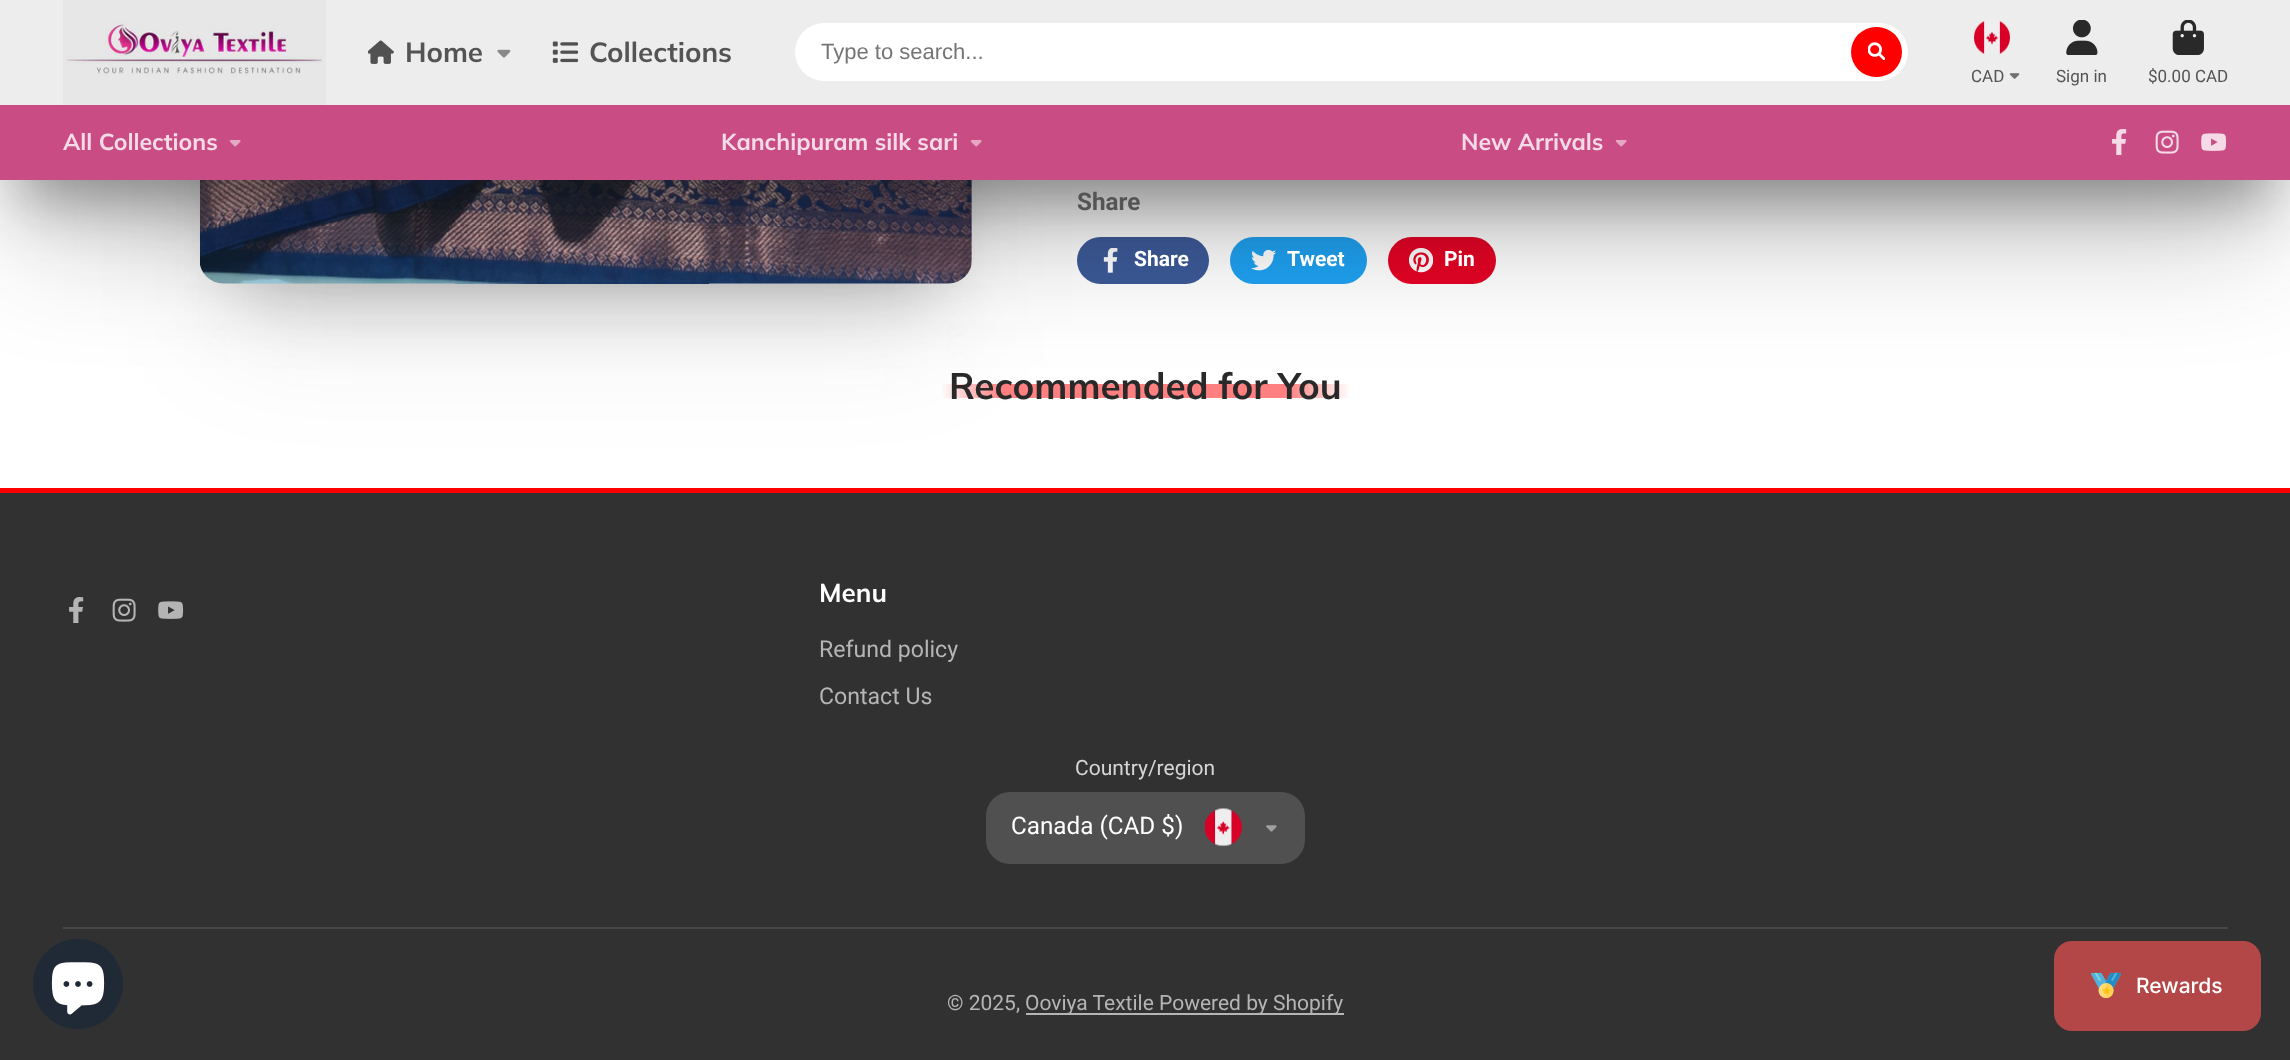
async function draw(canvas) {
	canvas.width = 2290;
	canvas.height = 1060;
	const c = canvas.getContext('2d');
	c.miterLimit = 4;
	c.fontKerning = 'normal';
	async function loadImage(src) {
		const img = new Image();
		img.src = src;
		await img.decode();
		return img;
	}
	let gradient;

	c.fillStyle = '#fff';
	c.fillRect(0, 0, 2290, 1060);
	gradient = c.createLinearGradient(941, 391, 1350, 391);
	gradient.addColorStop(0, '#fff');
	gradient.addColorStop(0.15, '#ff8080');
	gradient.addColorStop(0.85, '#ff8080');
	gradient.addColorStop(1, '#fff');
	c.fillStyle = gradient;
	c.fillRect(942, 384, 407, 14);
	c.fillStyle = '#1c1c1c4d';
	c.filter = 'blur(39.5px)';
	c.beginPath();
	c.rect(239, -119, 694, 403);
	c.fill();
	c.filter = 'none';
	c.fillStyle = '#313131';
	c.fillRect(0, 493, 2290, 567);
	c.fillStyle = '#f00';
	c.fillRect(0, 488, 2290, 5);
	c.fillStyle = '#1c1c1c1a';
	c.filter = 'blur(65.5px)';
	c.beginPath();
	c.rect(227, -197, 720, 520);
	c.fill();
	c.filter = 'none';
	c.drawImage(await loadImage('img14.png'), 200, 180, 772, 104);
	c.fillStyle = '#3b5998';
	c.beginPath();
	c.roundRect(1077, 237, 132, 47, 23.5);
	c.fill();
	c.drawImage(await loadImage('img15.png'), 1103, 248, 15, 25);
	c.fillStyle = '#1da1f2';
	c.beginPath();
	c.roundRect(1230, 237, 137, 47, 23.5);
	c.fill();
	c.drawImage(await loadImage('img16.png'), 1251, 249, 25, 22);
	c.fillStyle = '#e60023';
	c.beginPath();
	c.roundRect(1388, 237, 108, 47, 23.5);
	c.fill();
	c.drawImage(await loadImage('img17.png'), 1409, 248, 24, 25);
	c.fillStyle = '#1c1c1c66';
	c.filter = 'blur(29px)';
	c.beginPath();
	c.rect(21, 60, 2249, 138);
	c.fill();
	c.filter = 'none';
	c.fillStyle = '#1c1c1c4d';
	c.filter = 'blur(65.5px)';
	c.beginPath();
	c.rect(21, 87, 2249, 138);
	c.fill();
	c.filter = 'none';
	c.fillStyle = '#ededed';
	c.fillRect(0, 0, 2290, 105);
	c.drawImage(await loadImage('img1.png'), 63, 0, 263, 105);
	c.drawImage(await loadImage('img2.png'), 368, 40, 26, 24);
	c.font = 'bold 27.75px Muli';
	c.fillStyle = '#545454';
	c.fillText('Home', 405, 62);
	c.drawImage(await loadImage('img3.png'), 497, 49, 14, 9);
	c.drawImage(await loadImage('img4.png'), 552, 41, 26, 22);
	c.fillText('Collections', 589, 62);
	c.fillStyle = '#fff';
	c.beginPath();
	c.roundRect(795, 23, 1113, 58, 29);
	c.fill();
	c.font = '22px Liberation Sans';
	c.fillStyle = '#757575';
	c.fillText('Type to search...', 821, 59);
	c.fillStyle = '#f00';
	c.beginPath();
	c.roundRect(1851, 27, 51, 50, 25);
	c.fill();
	c.drawImage(await loadImage('img5.png'), 1868, 42, 17, 18);
	c.drawImage(await loadImage('img6.png'), 1974, 20, 36, 35);
	c.font = '17px Roboto';
	c.fillStyle = '#545454';
	c.fillText('CAD', 1971, 82);
	c.drawImage(await loadImage('img7.png'), 2009, 73, 11, 6);
	c.drawImage(await loadImage('img8.png'), 2066, 20, 32, 35);
	c.fillText('Sign in', 2056, 82);
	c.drawImage(await loadImage('img9.png'), 2172, 20, 32, 35);
	c.fillText('$0.00 CAD', 2148, 82);
	c.fillStyle = '#ca4c85';
	c.fillRect(0, 105, 2290, 75);
	c.font = 'bold 23.1px Muli';
	c.fillStyle = '#f4dbe7';
	c.fillText('All Collections', 63, 150);
	c.drawImage(await loadImage('img10.png'), 229, 140, 12, 7);
	c.fillText('Kanchipuram silk sari', 721, 150);
	c.drawImage(await loadImage('img10.png'), 970, 140, 12, 7);
	c.fillText('New Arrivals', 1461, 150);
	c.drawImage(await loadImage('img10.png'), 1615, 140, 12, 7);
	c.drawImage(await loadImage('img11.png'), 2112, 129, 15, 26);
	c.drawImage(await loadImage('img12.png'), 2155, 130, 24, 24);
	c.drawImage(await loadImage('img13.png'), 2201, 133, 26, 18);
	c.font = 'bold 24.25px Roboto';
	c.fillStyle = '#545454';
	c.fillText('Share', 1077, 210);
	c.font = 'bold 21px Roboto';
	c.fillStyle = '#fff';
	for (const [text, x, y] of [
		['Share', 1134, 266],
		['Tweet', 1287, 266],
		['Pin', 1444, 266],
	]) {
		c.fillText(text, x, y);
	}
	c.font = 'bold 36.75px Muli';
	c.fillStyle = '#292929';
	c.fillText('Recommended for You', 949, 399);
	c.fillStyle = '#202a36';
	c.beginPath();
	c.arc(78, 984, 45, 0, 2 * Math.PI);
	c.fill();
	c.drawImage(await loadImage('img18.png'), 51, 962, 54, 53);
	c.drawImage(await loadImage('img19.png'), 69, 597, 15, 26);
	c.drawImage(await loadImage('img20.png'), 112, 598, 24, 24);
	c.drawImage(await loadImage('img21.png'), 158, 601, 26, 18);
	c.font = 'bold 26px Muli';
	c.fillStyle = '#fff';
	c.fillText('Menu', 819, 602);
	c.font = '23.1px Roboto';
	c.fillStyle = '#b5b5b5';
	c.fillText('Refund policy', 819, 657);
	c.fillText('Contact Us', 819, 704);
	c.font = '21px Roboto';
	c.fillStyle = '#d6d6d6';
	c.fillText('Country/region', 1075, 775);
	c.fillStyle = '#505050';
	c.beginPath();
	c.roundRect(986, 792, 319, 72, 24);
	c.fill();
	c.font = '24.25px Roboto';
	c.fillStyle = '#fff';
	c.fillText('Canada (CAD $)', 1011, 834);
	c.drawImage(await loadImage('img22.png'), 1205, 808, 37, 39);
	c.drawImage(await loadImage('img23.png'), 1266, 825, 11, 7);
	c.fillStyle = '#464646';
	c.fillRect(63, 927, 2165, 2);
	c.font = '21px Roboto';
	c.fillStyle = '#b5b5b5';
	c.fillText('© 2025,', 947, 1010);
	c.fillRect(1026, 1013, 318, 2);
	c.fillText('Ooviya Textile Powered by Shopify', 1025, 1010);
	c.fillStyle = '#b34747';
	c.beginPath();
	c.roundRect(2054, 941, 207, 90, 18);
	c.fill();
	c.drawImage(await loadImage('img24.png'), 2091, 972, 30, 27);
	c.font = '500 21px Inter';
	c.fillStyle = '#fff';
	c.fillText('Rewards', 2136, 993);
}

draw(document.querySelector('canvas'));
